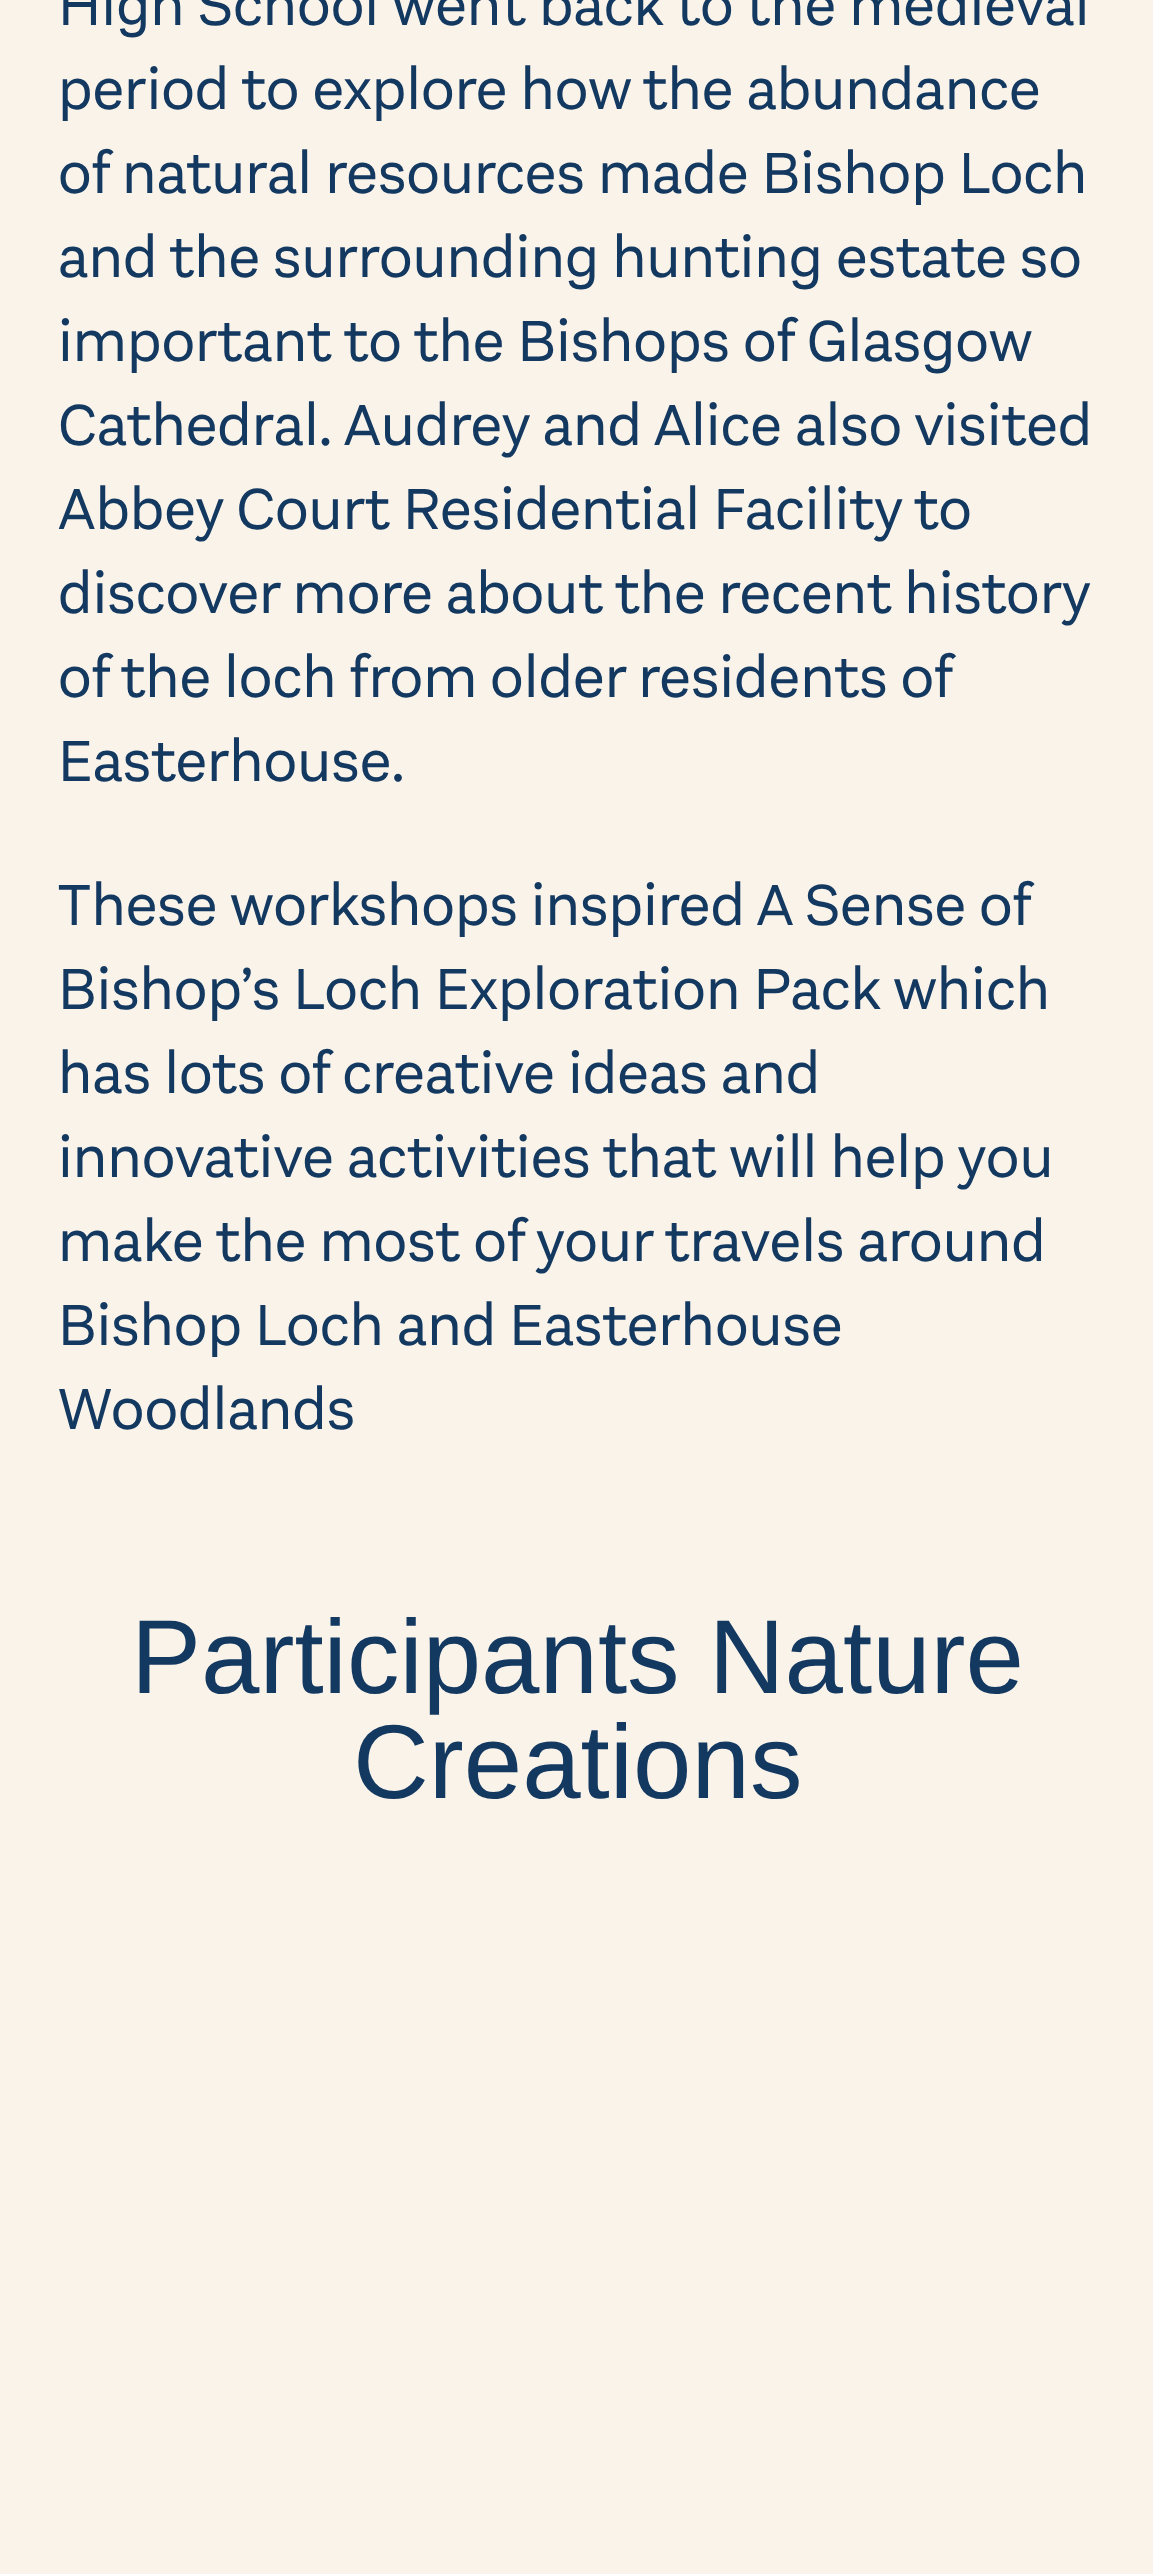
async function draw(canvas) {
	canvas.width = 1153;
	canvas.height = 2574;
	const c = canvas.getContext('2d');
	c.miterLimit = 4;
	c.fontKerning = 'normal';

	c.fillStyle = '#f9f3ea';
	c.fillRect(0, 0, 1153, 2574);
	c.font = '60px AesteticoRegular';
	c.fillStyle = '#143961';
	for (const [text, x, y] of [
		['High School went back to the medieval', 58, 25],
		['period to explore how the abundance', 58, 109],
		['of natural resources made Bishop Loch', 58, 193],
		['and the surrounding hunting estate so', 58, 277],
		['important to the Bishops of Glasgow', 58, 361],
		['Cathedral. Audrey and Alice also visited', 58, 445],
		['Abbey Court Residential Facility to', 58, 529],
	]) {
		c.fillText(text, x, y);
	}
	c.wordSpacing = '-0.25px';
	c.fillText('discover more about the recent history', 58, 613);
	c.fillText('of the loch from older residents of', 58, 697);
	c.wordSpacing = '0px';
	c.fillText('Easterhouse.', 58, 781);
	c.wordSpacing = '-0.25px';
	c.fillText('These workshops inspired A Sense of', 58, 925);
	c.wordSpacing = '0px';
	for (const [text, x, y] of [
		['Bishop’s Loch Exploration Pack which', 58, 1009],
		['has lots of creative ideas and', 58, 1093],
		['innovative activities that will help you', 58, 1177],
		['make the most of your travels around', 58, 1261],
		['Bishop Loch and Easterhouse', 58, 1345],
		['Woodlands', 58, 1429],
	]) {
		c.fillText(text, x, y);
	}
	c.font = '105px Liberation Sans';
	c.fillText('Participants Nature', 131, 1693);
	c.fillText('Creations', 353, 1798);
}

draw(document.querySelector('canvas'));
